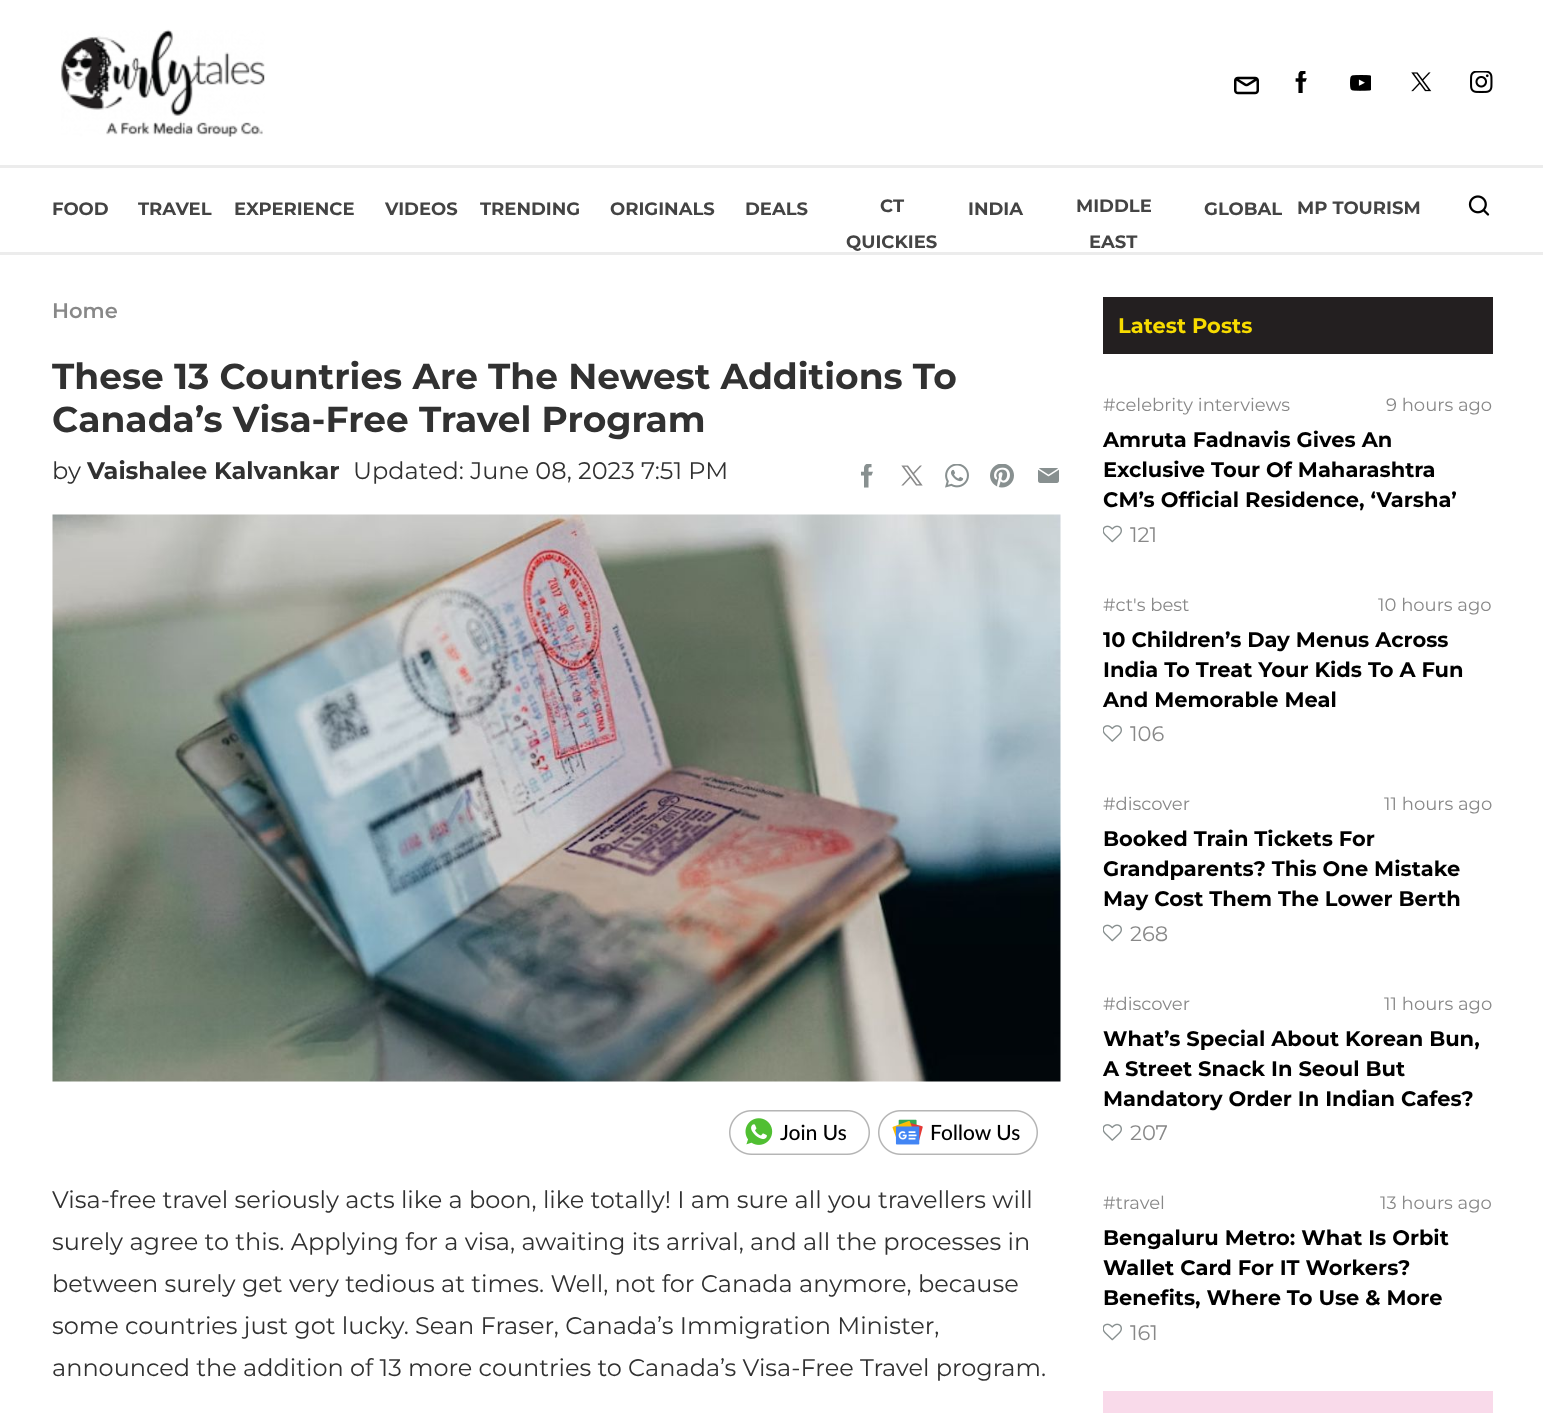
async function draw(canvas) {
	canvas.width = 1543;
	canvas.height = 1413;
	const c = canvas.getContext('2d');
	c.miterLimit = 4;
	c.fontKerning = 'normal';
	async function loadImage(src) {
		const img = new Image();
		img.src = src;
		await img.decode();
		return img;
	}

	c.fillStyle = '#fff';
	c.fillRect(0, 0, 1543, 1413);
	c.fillStyle = '#ececec';
	c.beginPath();
	c.moveTo(0, 252);
	c.lineTo(0, 255);
	c.lineTo(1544, 255);
	c.lineTo(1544, 3);
	c.lineTo(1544, 252);
	c.closePath();
	c.fill();
	c.beginPath();
	c.moveTo(0, 165);
	c.lineTo(0, 168);
	c.lineTo(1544, 168);
	c.lineTo(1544, 3);
	c.lineTo(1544, 165);
	c.closePath();
	c.fill();
	c.drawImage(await loadImage('img1.png'), 61, 29, 204, 108);
	c.drawImage(await loadImage('img2.png'), 1234, 76, 25, 19);
	c.drawImage(await loadImage('img3.png'), 1295, 71, 12, 22);
	c.drawImage(await loadImage('img4.png'), 1350, 75, 21, 16);
	c.drawImage(await loadImage('img5.png'), 1411, 72, 21, 20);
	c.drawImage(await loadImage('img6.png'), 1470, 71, 23, 22);
	c.font = 'bold 18px Montserrat';
	c.fillStyle = '#444';
	for (const [text, x, y] of [
		['FOOD', 52, 215],
		['TRAVEL', 138, 215],
		['EXPERIENCE', 234, 215],
		['VIDEOS', 385, 215],
		['TRENDING', 480, 215],
		['ORIGINALS', 610, 215],
		['DEALS', 745, 215],
		['CT', 880, 212],
		['QUICKIES', 846, 248],
		['INDIA', 968, 215],
		['MIDDLE', 1076, 212],
		['EAST', 1089, 248],
		['GLOBAL', 1204, 215],
		['MP TOURISM', 1297, 214],
	]) {
		c.fillText(text, x, y);
	}
	c.drawImage(await loadImage('img7.png'), 1468, 195, 22, 21);
	c.font = '600 21px Montserrat';
	c.fillStyle = '#888';
	c.fillText('Home', 52, 318);
	c.font = 'bold 36px Montserrat';
	c.fillStyle = '#313131';
	c.fillText('These 13 Countries Are The Newest Additions To', 52, 389);
	c.fillText('Canada’s Visa-Free Travel Program', 52, 432);
	c.font = '24px Montserrat';
	c.fillText('by', 52, 479);
	c.font = 'bold 24px Montserrat';
	c.fillText('Vaishalee Kalvankar', 87, 479);
	c.font = '24px Montserrat';
	c.fillText('Updated: June 08, 2023 7:51 PM', 353, 479);
	c.drawImage(await loadImage('img8.png'), 861, 464, 12, 24);
	c.drawImage(await loadImage('img9.png'), 901, 465, 22, 21);
	c.drawImage(await loadImage('img10.png'), 945, 464, 24, 24);
	c.drawImage(await loadImage('img11.png'), 990, 464, 24, 24);
	c.drawImage(await loadImage('img12.png'), 1038, 468, 21, 15);
	c.drawImage(await loadImage('img13.png'), 52, 514, 1009, 568);
	c.drawImage(await loadImage('img14.png'), 729, 1110, 141, 45);
	c.drawImage(await loadImage('img15.png'), 878, 1110, 160, 45);
	for (const [text, x, y] of [
		['Visa-free travel seriously acts like a boon, like totally! I am sure all you travellers will', 52, 1208],
		['surely agree to this. Applying for a visa, awaiting its arrival, and all the processes in', 52, 1250],
		['between surely get very tedious at times. Well, not for Canada anymore, because', 52, 1292],
		['some countries just got lucky. Sean Fraser, Canada’s Immigration Minister,', 52, 1334],
		['announced the addition of 13 more countries to Canada’s Visa-Free Travel program.', 52, 1376],
	]) {
		c.fillText(text, x, y);
	}
	c.fillStyle = '#231f20';
	c.fillRect(1103, 297, 390, 57);
	c.font = 'bold 21px Montserrat';
	c.fillStyle = '#f7db00';
	c.fillText('Latest Posts', 1118, 333);
	c.font = '18px Montserrat';
	c.fillStyle = '#888';
	c.fillText('#celebrity interviews', 1103, 411);
	c.fillText('9 hours ago', 1386, 411);
	c.font = 'bold 21px Montserrat';
	c.fillStyle = '#000';
	for (const [text, x, y] of [
		['Amruta Fadnavis Gives An', 1103, 447],
		['Exclusive Tour Of Maharashtra', 1103, 477],
		['CM’s Official Residence, ‘Varsha’', 1103, 507],
	]) {
		c.fillText(text, x, y);
	}
	c.drawImage(await loadImage('img16.png'), 1103, 525, 19, 18);
	c.font = '21px Montserrat';
	c.fillStyle = '#888';
	c.fillText('121', 1130, 542);
	c.font = '18px Montserrat';
	c.fillText('#ct\'s best', 1103, 611);
	c.fillText('10 hours ago', 1378, 611);
	c.font = 'bold 21px Montserrat';
	c.fillStyle = '#000';
	for (const [text, x, y] of [
		['10 Children’s Day Menus Across', 1103, 647],
		['India To Treat Your Kids To A Fun', 1103, 677],
		['And Memorable Meal', 1103, 707],
	]) {
		c.fillText(text, x, y);
	}
	c.drawImage(await loadImage('img17.png'), 1103, 725, 19, 17);
	c.font = '21px Montserrat';
	c.fillStyle = '#888';
	c.fillText('106', 1130, 741);
	c.font = '18px Montserrat';
	c.fillText('#discover', 1103, 810);
	c.fillText('11 hours ago', 1384, 810);
	c.font = 'bold 21px Montserrat';
	c.fillStyle = '#000';
	for (const [text, x, y] of [
		['Booked Train Tickets For', 1103, 846],
		['Grandparents? This One Mistake', 1103, 876],
		['May Cost Them The Lower Berth', 1103, 906],
	]) {
		c.fillText(text, x, y);
	}
	c.drawImage(await loadImage('img16.png'), 1103, 924, 19, 18);
	c.font = '21px Montserrat';
	c.fillStyle = '#888';
	c.fillText('268', 1130, 941);
	c.font = '18px Montserrat';
	c.fillText('#discover', 1103, 1010);
	c.fillText('11 hours ago', 1384, 1010);
	c.font = 'bold 21px Montserrat';
	c.fillStyle = '#000';
	for (const [text, x, y] of [
		['What’s Special About Korean Bun,', 1103, 1046],
		['A Street Snack In Seoul But', 1103, 1076],
		['Mandatory Order In Indian Cafes?', 1103, 1106],
	]) {
		c.fillText(text, x, y);
	}
	c.drawImage(await loadImage('img17.png'), 1103, 1124, 19, 17);
	c.font = '21px Montserrat';
	c.fillStyle = '#888';
	c.fillText('207', 1130, 1140);
	c.font = '18px Montserrat';
	c.fillText('#travel', 1103, 1209);
	c.fillText('13 hours ago', 1380, 1209);
	c.font = 'bold 21px Montserrat';
	c.fillStyle = '#000';
	for (const [text, x, y] of [
		['Bengaluru Metro: What Is Orbit', 1103, 1245],
		['Wallet Card For IT Workers?', 1103, 1275],
		['Benefits, Where To Use & More', 1103, 1305],
	]) {
		c.fillText(text, x, y);
	}
	c.drawImage(await loadImage('img16.png'), 1103, 1323, 19, 18);
	c.font = '21px Montserrat';
	c.fillStyle = '#888';
	c.fillText('161', 1130, 1340);
	c.fillStyle = '#f9daea';
	c.fillRect(1103, 1391, 390, 22);
}

draw(document.querySelector('canvas'));
